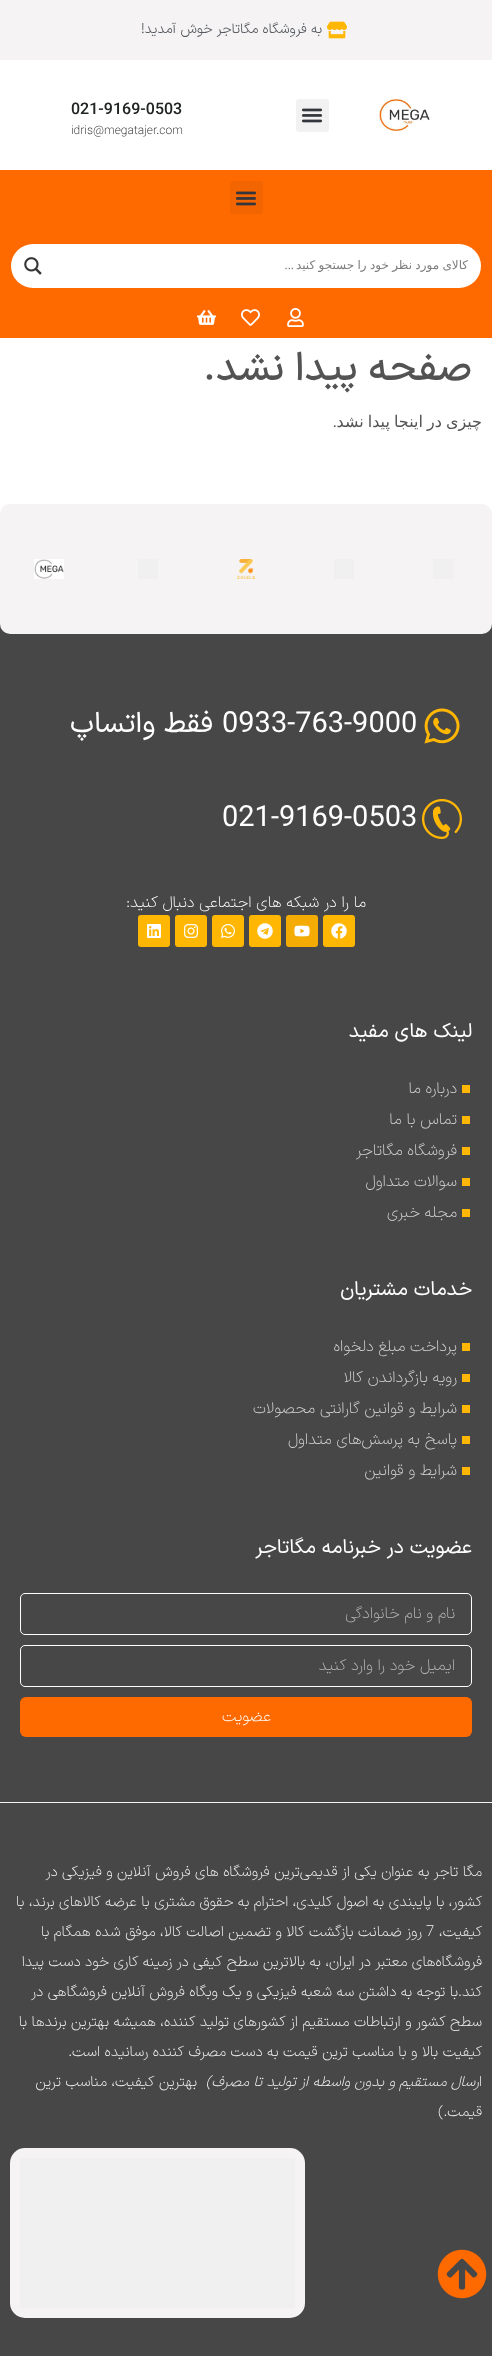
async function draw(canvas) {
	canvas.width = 492;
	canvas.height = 2356;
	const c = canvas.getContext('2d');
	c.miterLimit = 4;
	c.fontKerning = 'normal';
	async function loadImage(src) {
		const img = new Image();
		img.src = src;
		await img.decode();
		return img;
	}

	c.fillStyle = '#fff';
	c.fillRect(0, 0, 492, 2356);
	c.fillStyle = '#f5f3f4';
	c.fillRect(0, 0, 492, 60);
	c.drawImage(await loadImage('img1.png'), 327, 21, 20, 18);
	c.direction = 'rtl';
	c.font = '300 14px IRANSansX';
	c.fillStyle = '#54595f';
	c.fillText('به فروشگاه مگاتاجر خوش آمدید!', 322, 33);
	c.drawImage(await loadImage('img2.png'), 379, 99, 51, 32);
	c.fillStyle = '#f2f2f2';
	c.beginPath();
	c.roundRect(296, 99, 33, 33, 3);
	c.fill();
	c.drawImage(await loadImage('img3.png'), 301, 108, 22, 15);
	c.direction = 'ltr';
	c.font = '600 16px IRANSansX';
	c.fillStyle = '#202422';
	c.fillText('021-9169-0503', 71, 114);
	c.font = '200 12px IRANSansX';
	c.fillStyle = '#2c2c2c';
	c.fillText('idris@megatajer.com', 71, 134);
	c.fillStyle = '#ff6a00';
	c.fillRect(0, 170, 492, 168);
	c.fillStyle = '#f26500';
	c.beginPath();
	c.roundRect(230, 181, 33, 33, 3);
	c.fill();
	c.drawImage(await loadImage('img4.png'), 235, 191, 22, 15);
	c.fillStyle = '#fff';
	c.beginPath();
	c.roundRect(11, 244, 470, 44, 22);
	c.fill();
	c.wordSpacing = '-0.5px';
	c.direction = 'rtl';
	c.font = '12px DejaVu Sans';
	c.fillStyle = '#7d7d7d';
	c.fillText('کالای مورد نظر خود را جستجو کنید', 468, 269);
	c.wordSpacing = '0px';
	c.font = '12px Open Sans';
	c.fillText('...', 294, 269);
	c.drawImage(await loadImage('img5.png'), 24, 257, 18, 18);
	c.drawImage(await loadImage('img6.png'), 287, 308, 17, 19);
	c.drawImage(await loadImage('img7.png'), 241, 309, 19, 17);
	c.drawImage(await loadImage('img8.png'), 197, 310, 19, 15);
	c.font = '500 40px IRANSansX';
	c.fillStyle = '#535353';
	c.fillText('صفحه پیدا نشد.', 472, 380);
	c.wordSpacing = '-1px';
	c.font = '16px DejaVu Sans';
	c.fillText('چیزی در اینجا پیدا نشد', 482, 427);
	c.wordSpacing = '0px';
	c.font = '16px Roboto';
	c.fillText('.', 337, 427);
	c.fillStyle = '#474747';
	c.fillRect(0, 624, 492, 1732);
	c.fillStyle = '#f5f3f4';
	c.beginPath();
	c.roundRect(0, 504, 492, 130, 10);
	c.fill();
	c.fillStyle = '#f1f0f1';
	c.fillRect(433, 559, 20, 20);
	c.fillRect(334, 559, 20, 20);
	c.drawImage(await loadImage('img9.png'), 237, 559, 18, 20);
	c.fillRect(138, 559, 20, 20);
	c.drawImage(await loadImage('img10.png'), 34, 559, 30, 20);
	c.drawImage(await loadImage('img11.png'), 424, 708, 36, 36);
	c.direction = 'ltr';
	c.font = '29px IRANSansX';
	c.fillStyle = '#fff';
	c.fillText('0933-763-9000', 222, 732);
	c.direction = 'rtl';
	c.fillText('فقط واتساپ', 213, 732);
	c.drawImage(await loadImage('img12.png'), 422, 799, 40, 40);
	c.direction = 'ltr';
	c.fillText('021-9169-0503', 222, 826);
	c.direction = 'rtl';
	c.font = '200 16px IRANSansX';
	c.fillText('ما را در شبکه های اجتماعی دنبال کنید:', 366, 907);
	c.fillStyle = '#ffb703';
	c.beginPath();
	c.roundRect(323, 915, 32, 32, 3);
	c.fill();
	c.drawImage(await loadImage('img13.png'), 331, 923, 16, 16);
	c.fillStyle = '#f4ac04';
	c.beginPath();
	c.roundRect(286, 915, 32, 32, 3);
	c.fill();
	c.drawImage(await loadImage('img14.png'), 294, 925, 16, 12);
	c.fillStyle = '#ffb703';
	c.beginPath();
	c.roundRect(249, 915, 32, 32, 3);
	c.fill();
	c.drawImage(await loadImage('img15.png'), 257, 923, 16, 16);
	c.beginPath();
	c.roundRect(212, 915, 32, 32, 3);
	c.fill();
	c.drawImage(await loadImage('img16.png'), 221, 924, 14, 14);
	c.beginPath();
	c.roundRect(175, 915, 32, 32, 3);
	c.fill();
	c.drawImage(await loadImage('img17.png'), 184, 924, 14, 14);
	c.beginPath();
	c.roundRect(138, 915, 32, 32, 3);
	c.fill();
	c.drawImage(await loadImage('img18.png'), 147, 924, 14, 14);
	c.font = '20px IRANSansX';
	c.fillStyle = '#fff';
	c.fillText('لینک های مفید', 472, 1037);
	c.fillStyle = '#ffb703';
	c.fillRect(462, 1085, 8, 8);
	c.font = '200 16px IRANSansX';
	c.fillStyle = '#d3d3d3';
	c.fillText('درباره ما', 457, 1093);
	c.fillStyle = '#ffb703';
	c.fillRect(462, 1116, 8, 8);
	c.fillStyle = '#d3d3d3';
	c.fillText('تماس با ما', 457, 1124);
	c.fillStyle = '#ffb703';
	c.fillRect(462, 1147, 8, 8);
	c.fillStyle = '#d3d3d3';
	c.fillText('فروشگاه مگاتاجر', 457, 1155);
	c.fillStyle = '#ffb703';
	c.fillRect(462, 1178, 8, 8);
	c.fillStyle = '#d3d3d3';
	c.fillText('سوالات متداول', 457, 1186);
	c.fillStyle = '#ffb703';
	c.fillRect(462, 1209, 8, 8);
	c.fillStyle = '#d3d3d3';
	c.fillText('مجله خبری', 457, 1217);
	c.font = '20px IRANSansX';
	c.fillStyle = '#fff';
	c.fillText('خدمات مشتریان', 472, 1295);
	c.fillStyle = '#ffb703';
	c.fillRect(462, 1343, 8, 8);
	c.font = '200 16px IRANSansX';
	c.fillStyle = '#d3d3d3';
	c.fillText('پرداخت مبلغ دلخواه', 457, 1351);
	c.fillStyle = '#ffb703';
	c.fillRect(462, 1374, 8, 8);
	c.fillStyle = '#d3d3d3';
	c.fillText('رویه بازگرداندن کالا', 457, 1382);
	c.fillStyle = '#ffb703';
	c.fillRect(462, 1405, 8, 8);
	c.fillStyle = '#d3d3d3';
	c.fillText('شرایط و قوانین گارانتی محصولات', 457, 1413);
	c.fillStyle = '#ffb703';
	c.fillRect(462, 1436, 8, 8);
	c.fillStyle = '#d3d3d3';
	c.fillText('پاسخ به پرسش‌های متداول', 457, 1444);
	c.fillStyle = '#ffb703';
	c.fillRect(462, 1467, 8, 8);
	c.fillStyle = '#d3d3d3';
	c.fillText('شرایط و قوانین', 457, 1475);
	c.font = '20px IRANSansX';
	c.fillStyle = '#fff';
	c.fillText('عضویت در خبرنامه مگاتاجر', 472, 1553);
	c.beginPath();
	c.roundRect(20.5, 1593.5, 451, 41, 4.5);
	c.strokeStyle = '#fff';
	c.stroke();
	c.font = '200 16px IRANSansX';
	c.fillStyle = '#b5b5b5';
	c.fillText('نام و نام خانوادگی', 455, 1618);
	c.beginPath();
	c.roundRect(20.5, 1645.5, 451, 41, 4.5);
	c.stroke();
	c.fillText('ایمیل خود را وارد کنید', 455, 1670);
	c.fillStyle = '#ff6a00';
	c.beginPath();
	c.roundRect(20, 1697, 452, 40, 6);
	c.fill();
	c.fillStyle = '#fff';
	c.fillText('عضویت', 271, 1721);
	c.fillStyle = '#f3f3f3';
	c.fillRect(0, 1802, 492, 1);
	c.font = '200 15px IRANSansX';
	c.fillStyle = '#f5f3f4';
	for (const [text, x, y] of [
		['مگا تاجر به عنوان یکی از قدیمی‌ترین فروشگاه های فروش آنلاین و فیزیکی در', 482, 1876],
		['کشور، با پایبندی به اصول کلیدی، احترام به حقوق مشتری با عرضه کالاهای برند، با', 482, 1906],
		['کیفیت،', 482, 1936],
	]) {
		c.fillText(text, x, y);
	}
	c.direction = 'ltr';
	c.fillText('7', 426, 1936);
	c.direction = 'rtl';
	for (const [text, x, y] of [
		['روز ضمانت بازگشت کالا و تضمین اصالت کالا، موفق شده همگام با', 422, 1936],
		['فروشگاه‌های معتبر در ایران، به بالاترین سطح کیفی در زمینه کاری خود دست پیدا', 482, 1966],
		['کند.با توجه به داشتن سه شعبه فیزیکی و یک وبگاه فروش آنلاین فروشگاهی در', 482, 1996],
		['سطح کشور و ارتباطات مستقیم از کشورهای تولید کننده، همیشه بهترین برندها با', 482, 2026],
		['کیفیت بالا و با مناسب ترین قیمت به دست مصرف کننده رسانیده است.', 482, 2056],
		['ا', 482, 2086],
	]) {
		c.fillText(text, x, y);
	}
	c.font = 'italic 200 15px IRANSansX';
	c.fillText('رسال مستقیم و بدون واسطه از تولید تا مصرف', 479, 2086);
	c.direction = 'ltr';
	c.fillText('(', 206, 2086);
	c.direction = 'rtl';
	c.font = '200 15px IRANSansX';
	c.fillText('بهترین کیفیت، مناسب ترین', 197, 2086);
	c.fillText('قیمت.)', 482, 2116);
	c.beginPath();
	c.roundRect(10, 2148, 295, 170, 15);
	c.fill();
	c.fillStyle = '#f1f0f1';
	c.fillRect(20, 2158, 275, 150);
	c.drawImage(await loadImage('img19.png'), 437, 2249, 50, 50);
}

draw(document.querySelector('canvas'));
